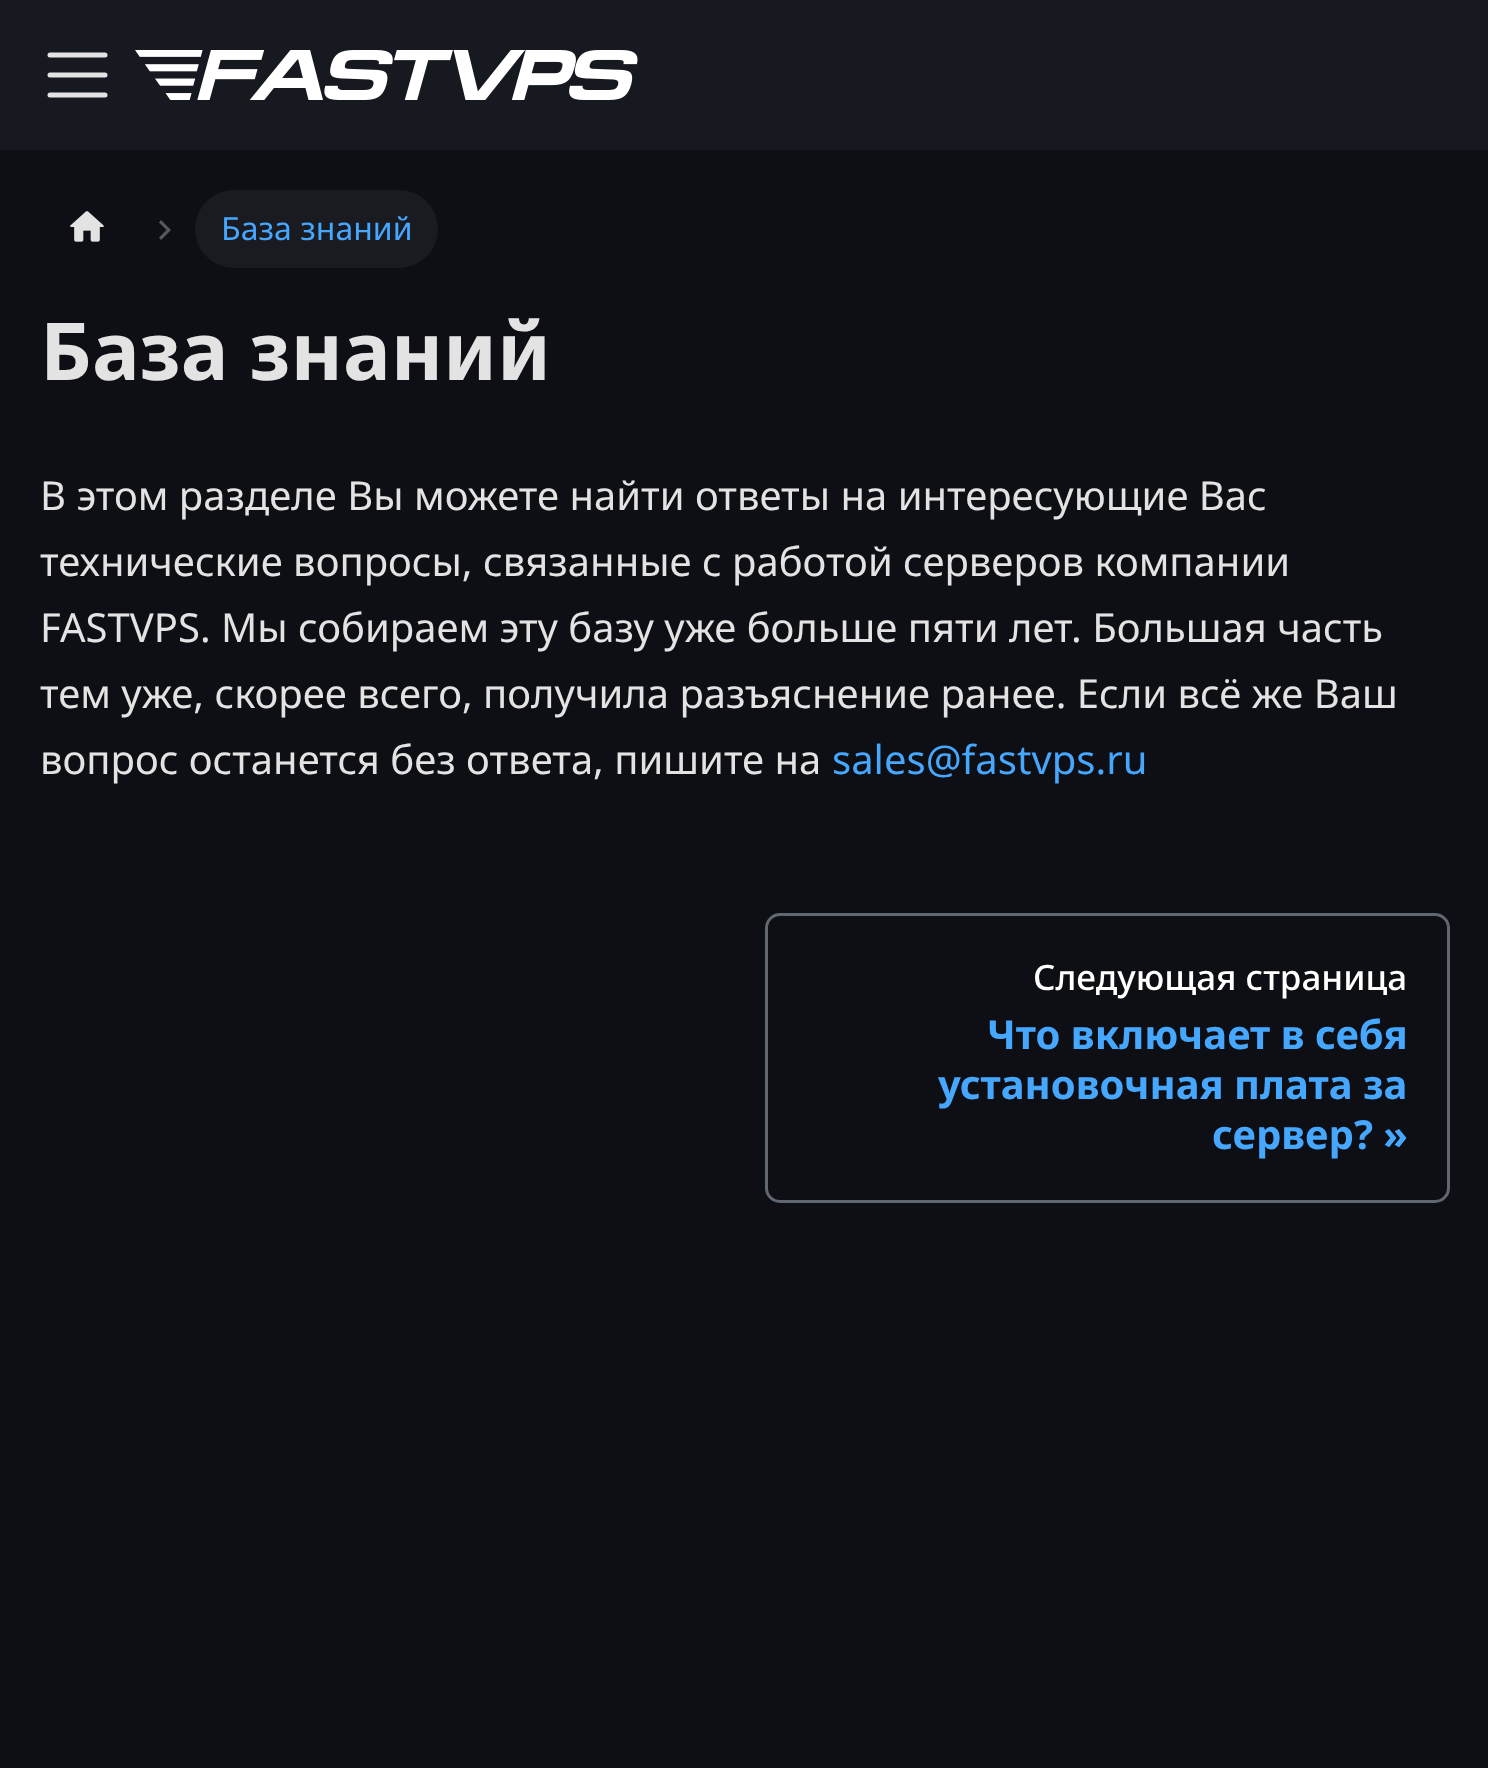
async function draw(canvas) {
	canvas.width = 1488;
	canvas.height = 1768;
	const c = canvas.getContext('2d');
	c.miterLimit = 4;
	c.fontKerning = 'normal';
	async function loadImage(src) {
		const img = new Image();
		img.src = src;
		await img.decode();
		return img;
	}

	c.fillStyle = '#0e0f14';
	c.fillRect(0, 0, 1488, 1768);
	c.fillStyle = '#171921';
	c.fillRect(0, 0, 1488, 150);
	c.beginPath();
	c.moveTo(50, 55);
	c.lineTo(105, 55);
	c.moveTo(50, 75);
	c.lineTo(105, 75);
	c.moveTo(50, 95);
	c.lineTo(105, 95);
	c.strokeStyle = '#e3e3e3';
	c.lineWidth = 5;
	c.lineCap = 'round';
	c.stroke();
	c.drawImage(await loadImage('img1.png'), 135, 50, 503, 50);
	c.drawImage(await loadImage('img2.png'), 70, 211, 34, 31);
	c.fillStyle = '#57585a';
	c.beginPath();
	c.moveTo(161, 220);
	c.lineTo(159, 222.5);
	c.lineTo(166.5, 230);
	c.lineTo(159, 237.5);
	c.lineTo(161, 240);
	c.lineTo(171, 230);
	c.closePath();
	c.fill();
	c.fillStyle = '#1a1b20';
	c.beginPath();
	c.roundRect(195, 190, 243, 78, 39);
	c.fill();
	c.font = '32px Noto Sans';
	c.fillStyle = '#46a7ff';
	c.fillText('База знаний', 221, 240);
	c.font = 'bold 80px Noto Sans';
	c.fillStyle = '#e3e3e3';
	c.fillText('База знаний', 40, 380);
	c.font = '40px Noto Sans';
	for (const [text, x, y] of [
		['В этом разделе Вы можете найти ответы на интересующие Вас', 40, 510],
		['технические вопросы, связанные с работой серверов компании', 40, 576],
		['FASTVPS. Мы собираем эту базу уже больше пяти лет. Большая часть', 40, 642],
		['тем уже, скорее всего, получила разъяснение ранее. Если всё же Ваш', 40, 708],
		['вопрос останется без ответа, пишите на', 40, 774],
	]) {
		c.fillText(text, x, y);
	}
	c.fillStyle = '#46a7ff';
	c.fillText('sales@fastvps.ru', 832, 774);
	c.beginPath();
	c.roundRect(766.5, 914.5, 682, 287, 13.5);
	c.strokeStyle = '#606770';
	c.lineWidth = 3;
	c.stroke();
	c.font = '500 35px Noto Sans';
	c.fillStyle = '#fff';
	c.fillText('Следующая страница', 1033, 990);
	c.font = 'bold 40px Noto Sans';
	c.fillStyle = '#46a7ff';
	for (const [text, x, y] of [
		['Что включает в себя', 987, 1049],
		['установочная плата за', 938, 1099],
		['сервер? »', 1212, 1149],
	]) {
		c.fillText(text, x, y);
	}
}

draw(document.querySelector('canvas'));
